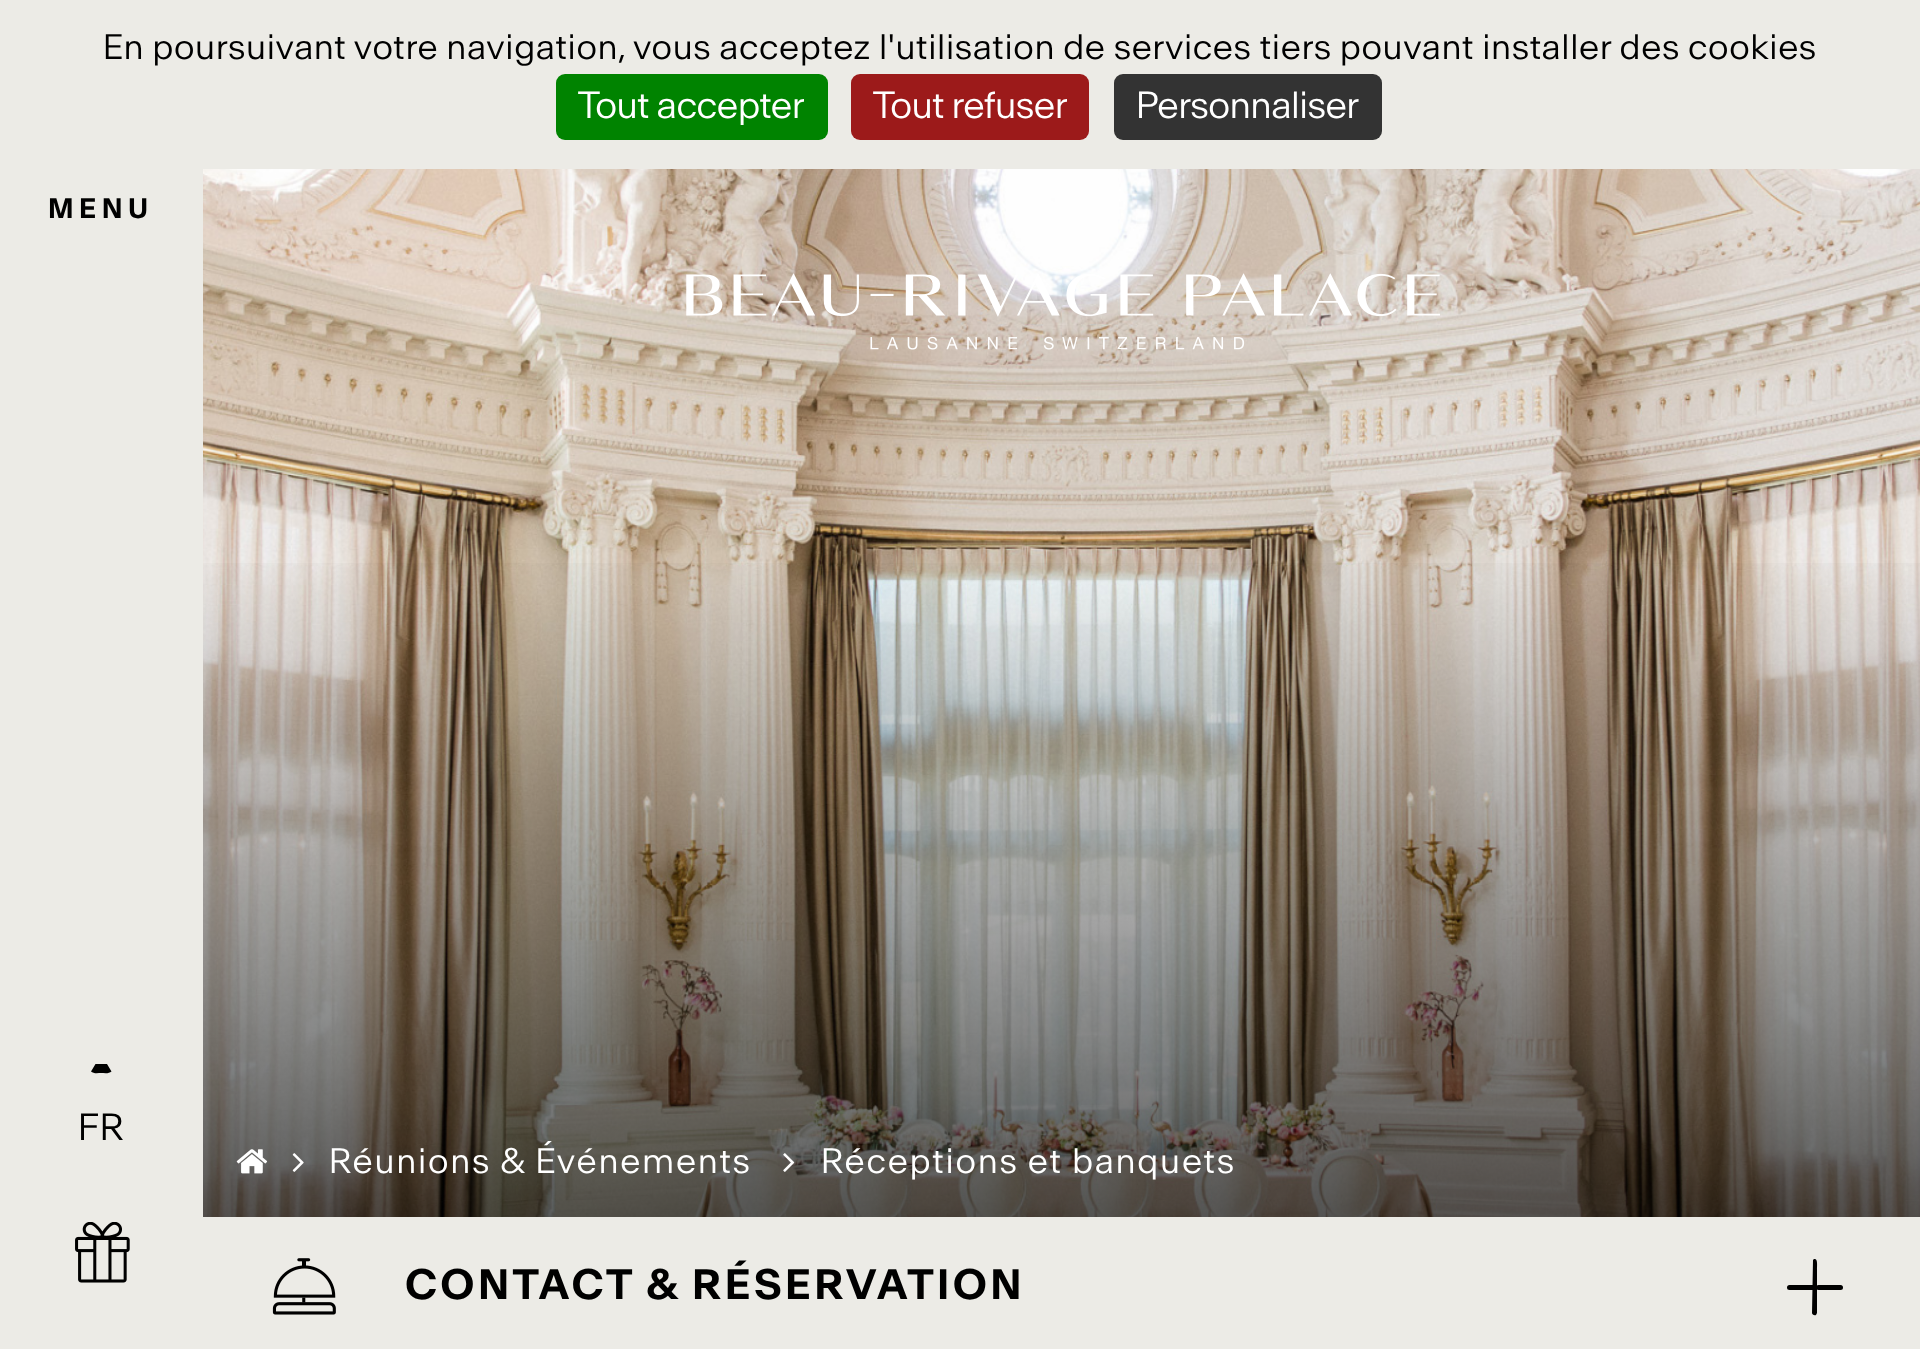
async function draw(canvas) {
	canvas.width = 1920;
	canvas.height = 1349;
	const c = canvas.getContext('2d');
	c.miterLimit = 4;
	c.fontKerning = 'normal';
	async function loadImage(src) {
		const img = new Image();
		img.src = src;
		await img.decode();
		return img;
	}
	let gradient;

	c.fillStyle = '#fff';
	c.fillRect(0, 0, 1920, 1349);
	c.fillStyle = '#ecebe6';
	c.fillRect(0, 0, 1920, 169);
	c.letterSpacing = '1.12px';
	c.font = '300 33.75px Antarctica';
	c.fillStyle = '#000';
	c.fillText('En poursuivant votre navigation, vous acceptez l\'utilisation de services tiers pouvant installer des cookies', 103, 59);
	c.fillStyle = '#008300';
	c.beginPath();
	c.roundRect(556, 74, 272, 66, 9);
	c.fill();
	c.letterSpacing = '0px';
	c.font = '300 36px Antarctica';
	c.fillStyle = '#fff';
	c.fillText('Tout accepter', 578, 118);
	c.fillStyle = '#9c1a1a';
	c.beginPath();
	c.roundRect(851, 74, 238, 66, 9);
	c.fill();
	c.fillStyle = '#fff';
	c.fillText('Tout refuser', 873, 118);
	c.fillStyle = '#333';
	c.beginPath();
	c.roundRect(1114, 74, 268, 66, 9);
	c.fill();
	c.fillStyle = '#fff';
	c.fillText('Personnaliser', 1136, 118);
	c.fillStyle = '#ecebe6';
	c.fillRect(0, 169, 203, 1180);
	c.letterSpacing = '5.5px';
	c.font = '600 27px Antarctica';
	c.fillStyle = '#000';
	c.fillText('MENU', 48, 218);
	c.beginPath();
	c.moveTo(111.5, 1071.5);
	c.bezierCurveTo(109, 1074, 104, 1073, 101, 1073);
	c.bezierCurveTo(98.5, 1073, 93.5, 1074, 91, 1071.5);
	c.lineTo(95.5, 1064);
	c.lineTo(107, 1064);
	c.closePath();
	c.fill();
	c.letterSpacing = '1.12px';
	c.font = '300 36px Antarctica';
	c.fillText('FR', 78, 1140);
	c.drawImage(await loadImage('img1.png'), 75, 1222, 55, 61);
	c.drawImage(await loadImage('img6.png'), 203, 169, 1717, 1048);
	gradient = c.createLinearGradient(961, 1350, 961, 540);
	gradient.addColorStop(0, '#000000bf');
	gradient.addColorStop(1, '#00000000');
	c.fillStyle = gradient;
	c.fillRect(203, 563, 1717, 654);
	c.drawImage(await loadImage('img2.png'), 236, 1149, 32, 25);
	c.drawImage(await loadImage('img3.png'), 292, 1153, 12, 19);
	c.letterSpacing = '2.25px';
	c.font = '300 33.75px Antarctica';
	c.fillStyle = '#fff';
	c.fillText('Réunions & Événements', 329, 1173);
	c.drawImage(await loadImage('img4.png'), 783, 1153, 12, 19);
	c.fillText('Réceptions et banquets', 821, 1173);
	c.drawImage(await loadImage('img5.png'), 686, 273, 754, 77);
	c.fillStyle = '#ecebe6';
	c.fillRect(203, 1217, 1717, 132);
	c.drawImage(await loadImage('img7.png'), 272, 1258, 64, 57);
	c.letterSpacing = '3.4px';
	c.font = '600 40.5px Antarctica';
	c.fillStyle = '#000';
	c.fillText('CONTACT & RÉSERVATION', 405, 1299);
	c.beginPath();
	c.roundRect(1787, 1285, 29, 5, 2.5);
	c.fill();
	c.beginPath();
	c.moveTo(1812, 1313);
	c.lineTo(1813, 1260);
	c.lineTo(1814, 1259);
	c.bezierCurveTo(1818, 1258, 1817, 1265, 1817, 1270);
	c.lineTo(1817, 1313);
	c.lineTo(1816, 1315);
	c.bezierCurveTo(1814, 1316, 1812, 1314, 1812, 1313);
	c.closePath();
	c.fill();
	c.beginPath();
	c.roundRect(1816, 1285, 27, 5, 2.5);
	c.fill();
}

draw(document.querySelector('canvas'));
